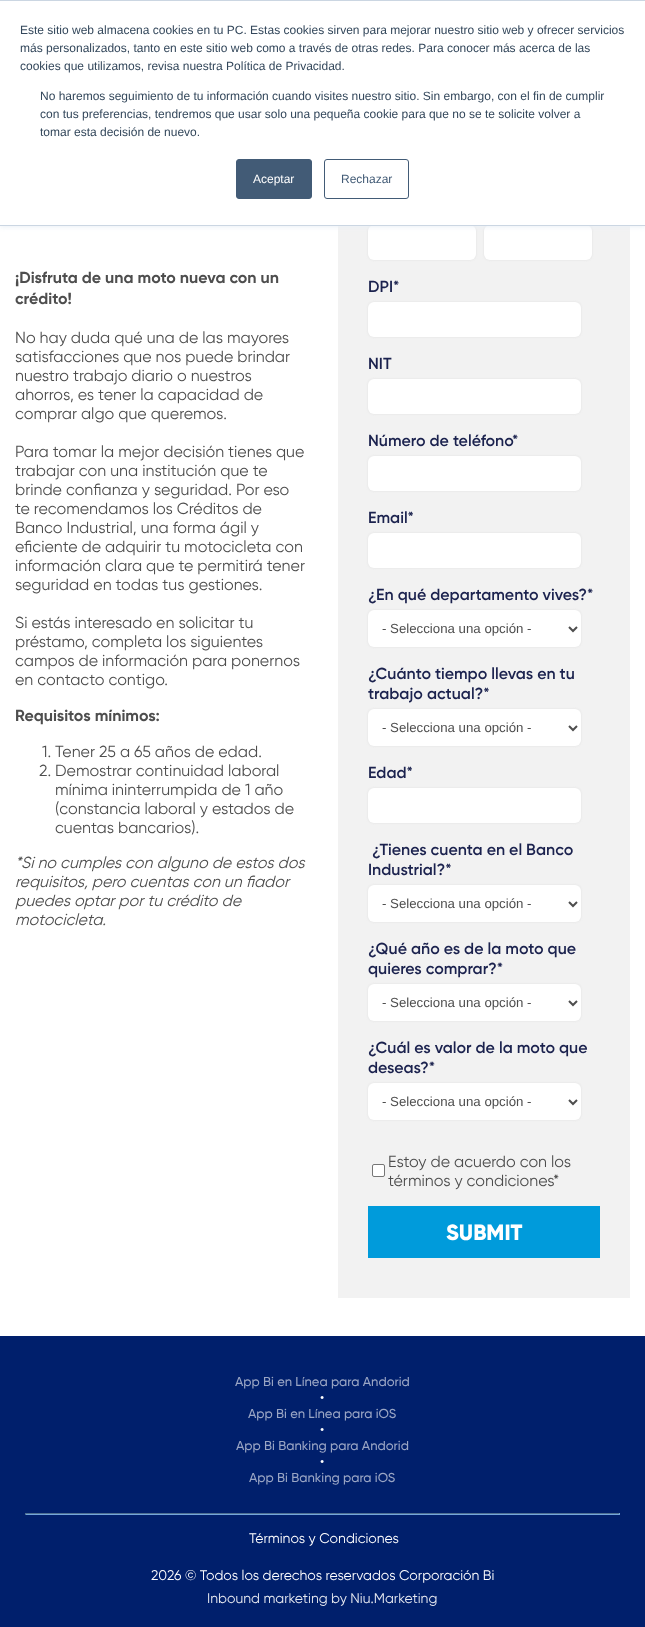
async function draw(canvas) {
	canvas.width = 645;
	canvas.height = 1627;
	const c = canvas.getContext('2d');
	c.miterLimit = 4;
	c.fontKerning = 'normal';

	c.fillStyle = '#fff';
	c.fillRect(0, 0, 645, 1627);
	c.fillStyle = '#f2f2f2';
	c.fillRect(338, 226, 292, 1072);
	c.fillStyle = '#e0e0e0';
	c.filter = 'blur(1px)';
	c.beginPath();
	c.roundRect(368, 225, 108, 35, 6);
	c.fill();
	c.filter = 'none';
	c.fillStyle = '#fff';
	c.beginPath();
	c.roundRect(368, 225, 108, 35, 6);
	c.fill();
	c.fillStyle = '#e0e0e0';
	c.filter = 'blur(1px)';
	c.beginPath();
	c.roundRect(484, 225, 108, 35, 6);
	c.fill();
	c.filter = 'none';
	c.fillStyle = '#fff';
	c.beginPath();
	c.roundRect(484, 225, 108, 35, 6);
	c.fill();
	c.fillStyle = '#eaf0f6';
	c.filter = 'blur(2.5px)';
	c.beginPath();
	c.rect(0, 1, 645, 226);
	c.fill();
	c.filter = 'none';
	for (const [x, y, w, h, color] of [
		[0, 1, 645, 224, '#fff'],
		[0, 0, 645, 1, '#cbd6e2'],
		[0, 225, 645, 1, '#cbd6e2'],
	]) {
		c.fillStyle = color;
		c.fillRect(x, y, w, h);
	}
	c.font = '12px Liberation Sans';
	c.fillStyle = '#33475b';
	for (const [text, x, y] of [
		['Este sitio web almacena cookies en tu PC. Estas cookies sirven para mejorar nuestro sitio web y ofrecer servicios', 20, 34],
		['más personalizados, tanto en este sitio web como a través de otras redes. Para conocer más acerca de las', 20, 52],
		['cookies que utilizamos, revisa nuestra Política de Privacidad.', 20, 70],
		['No haremos seguimiento de tu información cuando visites nuestro sitio. Sin embargo, con el fin de cumplir', 40, 100],
		['con tus preferencias, tendremos que usar solo una pequeña cookie para que no se te solicite volver a', 40, 118],
		['tomar esta decisión de nuevo.', 40, 136],
	]) {
		c.fillText(text, x, y);
	}
	c.fillStyle = '#425b76';
	c.beginPath();
	c.roundRect(236.5, 159.5, 75, 39, 2.5);
	c.fill();
	c.strokeStyle = '#425b76';
	c.stroke();
	c.fillStyle = '#fff';
	c.fillText('Aceptar', 253, 183);
	c.beginPath();
	c.roundRect(324.5, 159.5, 84, 39, 2.5);
	c.stroke();
	c.fillStyle = '#425b76';
	c.fillText('Rechazar', 341, 183);
	c.font = 'bold 16px Gilroy';
	c.fillStyle = '#4e4e4e';
	c.fillText('¡Disfruta de una moto nueva con un', 15, 283);
	c.fillText('crédito!', 15, 304);
	c.font = '16px Gilroy';
	for (const [text, x, y] of [
		['No hay duda qué una de las mayores', 15, 343],
		['satisfacciones que nos puede brindar', 15, 362],
		['nuestro trabajo diario o nuestros', 15, 381],
		['ahorros, es tener la capacidad de', 15, 400],
		['comprar algo que queremos.', 15, 419],
		['Para tomar la mejor decisión tienes que', 15, 457],
		['trabajar con una institución que te', 15, 476],
		['brinde confianza y seguridad. Por eso', 15, 495],
		['te recomendamos los Créditos de', 15, 514],
		['Banco Industrial, una forma ágil y', 15, 533],
		['eficiente de adquirir tu motocicleta con', 15, 552],
		['información clara que te permitirá tener', 15, 571],
		['seguridad en todas tus gestiones.', 15, 590],
		['Si estás interesado en solicitar tu', 15, 628],
		['préstamo, completa los siguientes', 15, 647],
		['campos de información para ponernos', 15, 666],
		['en contacto contigo.', 15, 685],
	]) {
		c.fillText(text, x, y);
	}
	c.font = 'bold 16px Gilroy';
	c.fillText('Requisitos mínimos:', 15, 721);
	c.font = '16px Gilroy';
	for (const [text, x, y] of [
		['1. Tener 25 a 65 años de edad.', 42, 757],
		['2. Demostrar continuidad laboral', 39, 776],
		['mínima ininterrumpida de 1 año', 55, 795],
		['(constancia laboral y estados de', 55, 814],
		['cuentas bancarios).', 55, 833],
	]) {
		c.fillText(text, x, y);
	}
	c.font = 'italic 16px Gilroy';
	for (const [text, x, y] of [
		['*Si no cumples con alguno de estos dos', 15, 868],
		['requisitos, pero cuentas con un fiador', 15, 887],
		['puedes optar por tu crédito de', 15, 906],
		['motocicleta.', 15, 925],
	]) {
		c.fillText(text, x, y);
	}
	c.font = '600 16px Gilroy';
	c.fillStyle = '#1b224e';
	c.fillText('DPI*', 368, 292);
	c.fillStyle = '#e0e0e0';
	c.filter = 'blur(1px)';
	c.beginPath();
	c.roundRect(368, 302, 213, 35, 6);
	c.fill();
	c.filter = 'none';
	c.fillStyle = '#fff';
	c.beginPath();
	c.roundRect(368, 302, 213, 35, 6);
	c.fill();
	c.fillStyle = '#1b224e';
	c.fillText('NIT', 368, 369);
	c.fillStyle = '#e0e0e0';
	c.filter = 'blur(1px)';
	c.beginPath();
	c.roundRect(368, 379, 213, 35, 6);
	c.fill();
	c.filter = 'none';
	c.fillStyle = '#fff';
	c.beginPath();
	c.roundRect(368, 379, 213, 35, 6);
	c.fill();
	c.fillStyle = '#1b224e';
	c.fillText('Número de teléfono', 368, 446);
	c.fillText('*', 512, 446);
	c.fillStyle = '#e0e0e0';
	c.filter = 'blur(1px)';
	c.beginPath();
	c.roundRect(368, 456, 213, 35, 6);
	c.fill();
	c.filter = 'none';
	c.fillStyle = '#fff';
	c.beginPath();
	c.roundRect(368, 456, 213, 35, 6);
	c.fill();
	c.fillStyle = '#1b224e';
	c.fillText('Email*', 368, 523);
	c.fillStyle = '#e0e0e0';
	c.filter = 'blur(1px)';
	c.beginPath();
	c.roundRect(368, 533, 213, 35, 6);
	c.fill();
	c.filter = 'none';
	c.fillStyle = '#fff';
	c.beginPath();
	c.roundRect(368, 533, 213, 35, 6);
	c.fill();
	c.fillStyle = '#1b224e';
	c.fillText('¿En qué departamento vives?*', 368, 600);
	c.fillStyle = '#e0e0e0';
	c.filter = 'blur(1px)';
	c.beginPath();
	c.roundRect(368, 610, 213, 37, 6);
	c.fill();
	c.filter = 'none';
	c.fillStyle = '#fff';
	c.beginPath();
	c.roundRect(368, 610, 213, 37, 6);
	c.fill();
	c.beginPath();
	c.moveTo(569, 627);
	c.lineTo(573, 631);
	c.lineTo(577, 627);
	c.strokeStyle = '#4e4e4e';
	c.lineWidth = 2;
	c.stroke();
	c.font = '13.25px Liberation Sans';
	c.fillStyle = '#4e4e4e';
	c.fillText('- Selecciona una opción -', 382, 633);
	c.font = '600 16px Gilroy';
	c.fillStyle = '#1b224e';
	c.fillText('¿Cuánto tiempo llevas en tu', 368, 679);
	c.fillText('trabajo actual?*', 368, 699);
	c.fillStyle = '#e0e0e0';
	c.filter = 'blur(1px)';
	c.beginPath();
	c.roundRect(368, 709, 213, 37, 6);
	c.fill();
	c.filter = 'none';
	c.fillStyle = '#fff';
	c.beginPath();
	c.roundRect(368, 709, 213, 37, 6);
	c.fill();
	c.beginPath();
	c.moveTo(569, 726);
	c.lineTo(573, 730);
	c.lineTo(577, 726);
	c.stroke();
	c.font = '13.25px Liberation Sans';
	c.fillStyle = '#4e4e4e';
	c.fillText('- Selecciona una opción -', 382, 732);
	c.font = '600 16px Gilroy';
	c.fillStyle = '#1b224e';
	c.fillText('Edad*', 368, 778);
	c.fillStyle = '#e0e0e0';
	c.filter = 'blur(1px)';
	c.beginPath();
	c.roundRect(368, 788, 213, 35, 6);
	c.fill();
	c.filter = 'none';
	c.fillStyle = '#fff';
	c.beginPath();
	c.roundRect(368, 788, 213, 35, 6);
	c.fill();
	c.fillStyle = '#1b224e';
	c.fillText('¿Tienes cuenta en el Banco', 372, 855);
	c.fillText('Industrial?*', 368, 875);
	c.fillStyle = '#e0e0e0';
	c.filter = 'blur(1px)';
	c.beginPath();
	c.roundRect(368, 885, 213, 37, 6);
	c.fill();
	c.filter = 'none';
	c.fillStyle = '#fff';
	c.beginPath();
	c.roundRect(368, 885, 213, 37, 6);
	c.fill();
	c.beginPath();
	c.moveTo(569, 902);
	c.lineTo(573, 906);
	c.lineTo(577, 902);
	c.stroke();
	c.font = '13.25px Liberation Sans';
	c.fillStyle = '#4e4e4e';
	c.fillText('- Selecciona una opción -', 382, 908);
	c.font = '600 16px Gilroy';
	c.fillStyle = '#1b224e';
	c.fillText('¿Qué año es de la moto que', 368, 954);
	c.fillText('quieres comprar?*', 368, 974);
	c.fillStyle = '#e0e0e0';
	c.filter = 'blur(1px)';
	c.beginPath();
	c.roundRect(368, 984, 213, 37, 6);
	c.fill();
	c.filter = 'none';
	c.fillStyle = '#fff';
	c.beginPath();
	c.roundRect(368, 984, 213, 37, 6);
	c.fill();
	c.beginPath();
	c.moveTo(569, 1001);
	c.lineTo(573, 1005);
	c.lineTo(577, 1001);
	c.stroke();
	c.font = '13.25px Liberation Sans';
	c.fillStyle = '#4e4e4e';
	c.fillText('- Selecciona una opción -', 382, 1007);
	c.font = '600 16px Gilroy';
	c.fillStyle = '#1b224e';
	c.fillText('¿Cuál es valor de la moto que', 368, 1053);
	c.fillText('deseas?*', 368, 1073);
	c.fillStyle = '#e0e0e0';
	c.filter = 'blur(1px)';
	c.beginPath();
	c.roundRect(368, 1083, 213, 37, 6);
	c.fill();
	c.filter = 'none';
	c.fillStyle = '#fff';
	c.beginPath();
	c.roundRect(368, 1083, 213, 37, 6);
	c.fill();
	c.beginPath();
	c.moveTo(569, 1100);
	c.lineTo(573, 1104);
	c.lineTo(577, 1100);
	c.stroke();
	c.font = '13.25px Liberation Sans';
	c.fillStyle = '#4e4e4e';
	c.fillText('- Selecciona una opción -', 382, 1106);
	c.fillStyle = '#fff';
	c.beginPath();
	c.roundRect(372.5, 1164.5, 12, 12, 1.5);
	c.fill();
	c.strokeStyle = '#767676';
	c.lineWidth = 1;
	c.stroke();
	c.font = '16px Gilroy';
	c.fillStyle = '#4e4e4e';
	for (const [text, x, y] of [
		['Estoy de acuerdo con los', 388, 1167],
		['términos y condiciones', 388, 1186],
		['*', 553, 1186],
	]) {
		c.fillText(text, x, y);
	}
	c.fillStyle = '#009bdb';
	c.fillRect(368, 1206, 232, 52);
	c.font = '800 22px Gilroy';
	c.fillStyle = '#fff';
	c.fillText('SUBMIT', 446, 1240);
	c.fillStyle = '#001f6c';
	c.fillRect(0, 1336, 645, 291);
	c.font = '500 13px Gilroy';
	c.fillStyle = '#99a5c4';
	c.fillText('App Bi en Línea para Andorid', 235, 1386);
	c.fillStyle = '#fff';
	c.fillText('•', 320, 1402);
	c.fillStyle = '#99a5c4';
	c.fillText('App Bi en Línea para iOS', 248, 1418);
	c.fillStyle = '#fff';
	c.fillText('•', 320, 1434);
	c.fillStyle = '#99a5c4';
	c.fillText('App Bi Banking para Andorid', 236, 1450);
	c.fillStyle = '#fff';
	c.fillText('•', 320, 1466);
	c.fillStyle = '#99a5c4';
	c.fillText('App Bi Banking para iOS', 249, 1482);
	for (const [x, y, w, h, color] of [
		[25, 1513, 595, 1, '#4d6f91'],
		[619, 1513, 1, 2, '#74a6da'],
		[25, 1514, 595, 1, '#74a6da'],
		[25, 1513, 1, 2, '#4d6f91'],
	]) {
		c.fillStyle = color;
		c.fillRect(x, y, w, h);
	}
	c.font = '14px Gilroy';
	c.fillStyle = '#fff';
	c.fillText('Términos y Condiciones', 249, 1543);
	c.fillText('2026 © Todos los derechos reservados Corporación Bi', 151, 1580);
	c.fillStyle = '#e6e9f0';
	c.fillText('Inbound marketing by Niu.Marketing', 207, 1603);
}

draw(document.querySelector('canvas'));
